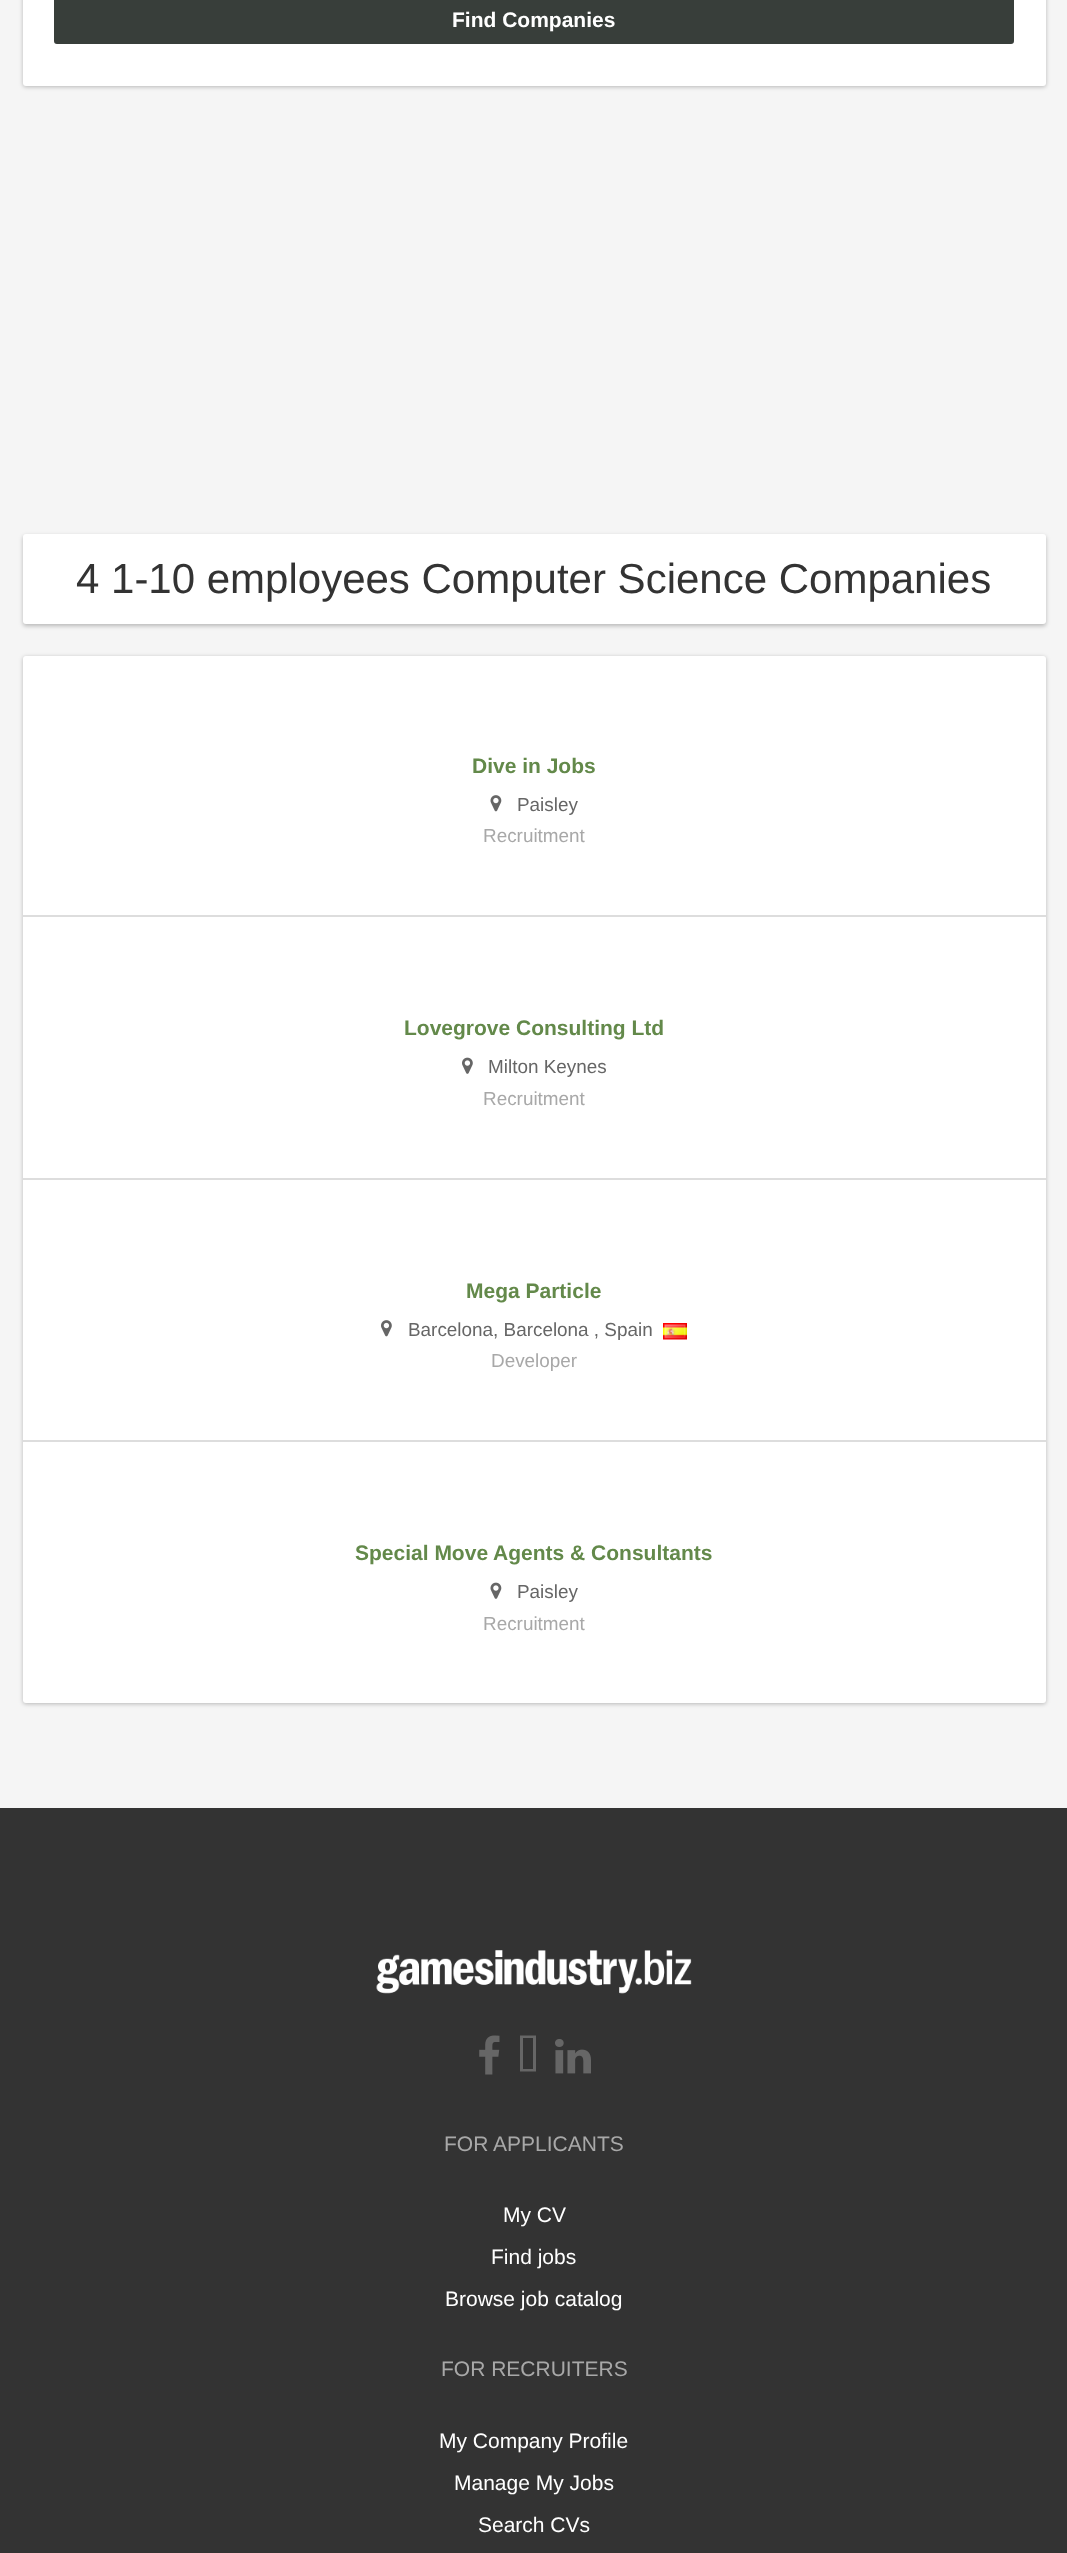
async function draw(canvas) {
	canvas.width = 1067;
	canvas.height = 2553;
	const c = canvas.getContext('2d');
	c.miterLimit = 4;
	c.fontKerning = 'normal';
	async function loadImage(src) {
		const img = new Image();
		img.src = src;
		await img.decode();
		return img;
	}

	c.fillStyle = '#f5f5f5';
	c.fillRect(0, 0, 1067, 2553);
	c.fillStyle = '#00000040';
	c.filter = 'blur(2px)';
	c.beginPath();
	c.roundRect(23, -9, 1023, 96, 3);
	c.fill();
	c.filter = 'none';
	c.fillStyle = '#fff';
	c.beginPath();
	c.roundRect(23, -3, 1023, 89, 3);
	c.fill();
	c.fillStyle = '#383e3a';
	c.beginPath();
	c.roundRect(55, -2, 958, 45, 2);
	c.fill();
	c.strokeStyle = '#383e3a';
	c.lineWidth = 2;
	c.stroke();
	c.font = 'bold 21px Liberation Sans';
	c.fillStyle = '#fff';
	c.fillText('Find Companies', 452, 27);
	c.fillStyle = '#00000040';
	c.filter = 'blur(2px)';
	c.beginPath();
	c.roundRect(23, 536, 1023, 90, 3);
	c.fill();
	c.filter = 'none';
	c.fillStyle = '#fff';
	c.beginPath();
	c.roundRect(23, 534, 1023, 90, 3);
	c.fill();
	c.font = '42px Liberation Sans';
	c.fillStyle = '#333';
	c.fillText('4 1-10 employees Computer Science Companies', 76, 593);
	c.fillStyle = '#00000040';
	c.filter = 'blur(2px)';
	c.beginPath();
	c.roundRect(23, 657, 1023, 1047, 3);
	c.fill();
	c.filter = 'none';
	c.fillStyle = '#fff';
	c.beginPath();
	c.roundRect(23, 656, 1023, 1047, 3);
	c.fill();
	c.font = 'bold 21px Liberation Sans';
	c.fillStyle = '#63894a';
	c.fillText('Dive in Jobs', 472, 773);
	c.drawImage(await loadImage('img1.png'), 490, 795, 12, 17);
	c.font = '18.9px Liberation Sans';
	c.fillStyle = '#666';
	c.fillText('Paisley', 517, 811);
	c.fillStyle = '#a8a8a8';
	c.fillText('Recruitment', 483, 842);
	c.fillStyle = '#ddd';
	c.fillRect(23, 915, 1023, 2);
	c.font = 'bold 21px Liberation Sans';
	c.fillStyle = '#63894a';
	c.fillText('Lovegrove Consulting Ltd', 404, 1035);
	c.drawImage(await loadImage('img2.png'), 462, 1057, 11, 17);
	c.font = '18.9px Liberation Sans';
	c.fillStyle = '#666';
	c.fillText('Milton Keynes', 488, 1073);
	c.fillStyle = '#a8a8a8';
	c.fillText('Recruitment', 483, 1105);
	c.fillStyle = '#ddd';
	c.fillRect(23, 1178, 1023, 2);
	c.font = 'bold 21px Liberation Sans';
	c.fillStyle = '#63894a';
	c.fillText('Mega Particle', 466, 1298);
	c.drawImage(await loadImage('img3.png'), 381, 1320, 11, 17);
	c.font = '18.9px Liberation Sans';
	c.fillStyle = '#666';
	c.fillText('Barcelona, Barcelona , Spain', 408, 1336);
	c.drawImage(await loadImage('img4.png'), 663, 1323, 24, 17);
	c.fillStyle = '#a8a8a8';
	c.fillText('Developer', 491, 1367);
	c.fillStyle = '#ddd';
	c.fillRect(23, 1440, 1023, 2);
	c.font = 'bold 21px Liberation Sans';
	c.fillStyle = '#63894a';
	c.fillText('Special Move Agents & Consultants', 355, 1560);
	c.drawImage(await loadImage('img5.png'), 490, 1582, 12, 17);
	c.font = '18.9px Liberation Sans';
	c.fillStyle = '#666';
	c.fillText('Paisley', 517, 1598);
	c.fillStyle = '#a8a8a8';
	c.fillText('Recruitment', 483, 1630);
	c.fillStyle = '#333';
	c.fillRect(0, 1808, 1067, 745);
	c.drawImage(await loadImage('img6.png'), 376, 1950, 316, 44);
	c.drawImage(await loadImage('img7.png'), 479, 2035, 21, 40);
	c.fillStyle = '#666';
	c.beginPath();
	c.moveTo(523, 2069);
	c.lineTo(523, 2038);
	c.lineTo(533, 2038);
	c.lineTo(533, 2069);
	c.closePath();
	c.moveTo(520, 2071.5);
	c.lineTo(536, 2071.5);
	c.lineTo(536, 2035.5);
	c.lineTo(520, 2035.5);
	c.closePath();
	c.fill();
	c.drawImage(await loadImage('img8.png'), 555, 2039, 36, 35);
	c.font = '21px Liberation Sans';
	c.fillStyle = '#a8a8a8';
	c.fillText('FOR APPLICANTS', 444, 2151);
	c.fillStyle = '#fff';
	for (const [text, x, y] of [
		['My CV', 503, 2222],
		['Find jobs', 491, 2264],
		['Browse job catalog', 445, 2306],
	]) {
		c.fillText(text, x, y);
	}
	c.fillStyle = '#a8a8a8';
	c.fillText('FOR RECRUITERS', 441, 2376);
	c.fillStyle = '#fff';
	for (const [text, x, y] of [
		['My Company Profile', 439, 2448],
		['Manage My Jobs', 454, 2490],
		['Search CVs', 478, 2532],
	]) {
		c.fillText(text, x, y);
	}
}

draw(document.querySelector('canvas'));
